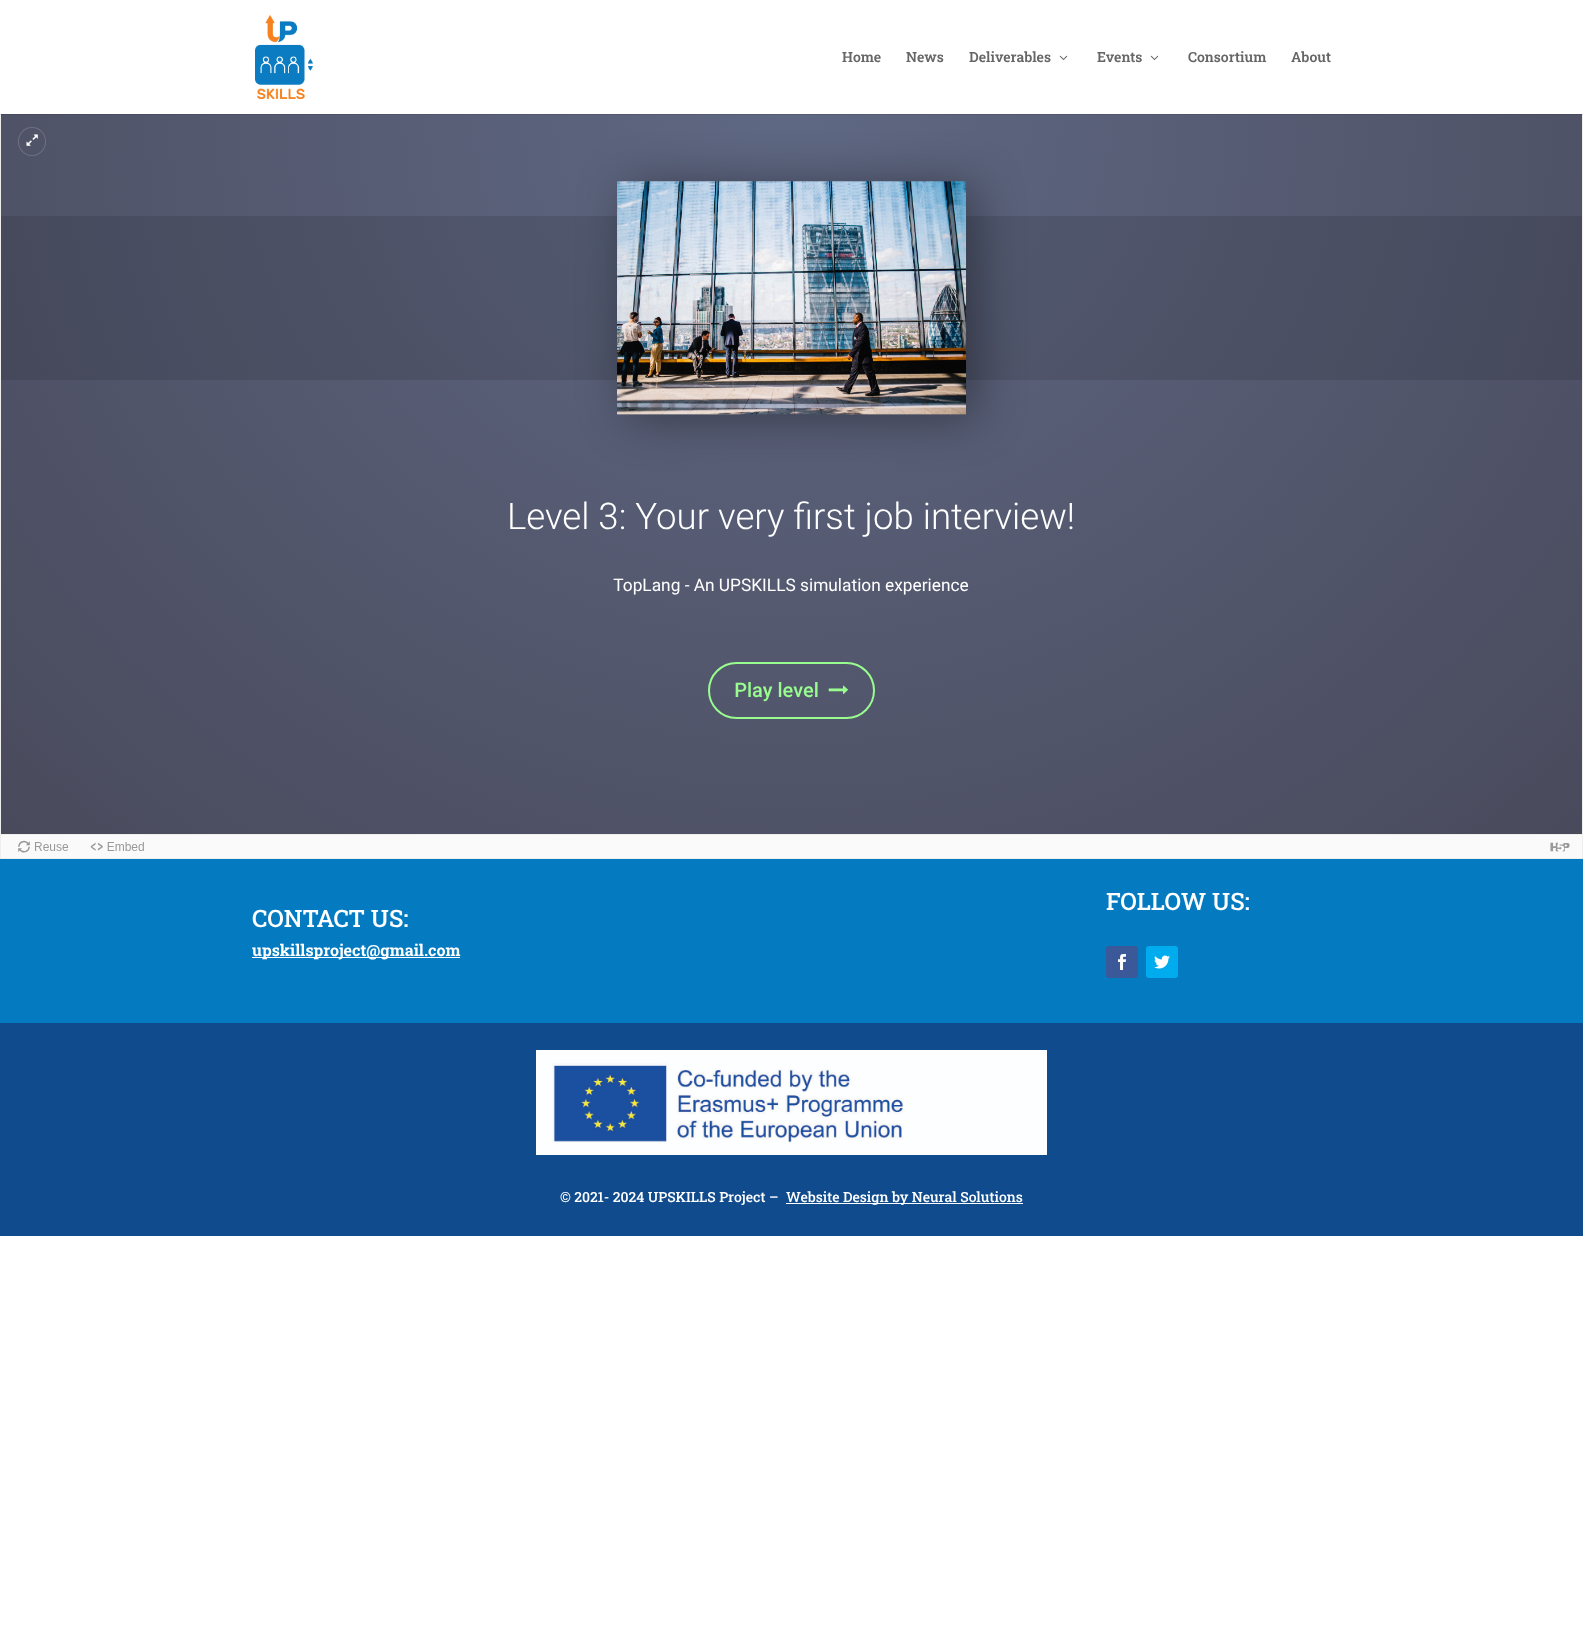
async function draw(canvas) {
	canvas.width = 1583;
	canvas.height = 1632;
	const c = canvas.getContext('2d');
	c.miterLimit = 4;
	c.fontKerning = 'normal';
	async function loadImage(src) {
		const img = new Image();
		img.src = src;
		await img.decode();
		return img;
	}

	c.fillStyle = '#fff';
	c.fillRect(0, 0, 1583, 1632);
	c.drawImage(await loadImage('img3.png'), 0, 114, 1583, 745);
	c.fillStyle = '#0000001a';
	c.fillRect(0, 114, 1583, 1);
	c.drawImage(await loadImage('img1.png'), 255, 15, 58, 84);
	c.font = '600 14px Roboto Slab';
	c.fillStyle = '#666';
	for (const [text, x, y] of [
		['Home', 842, 62],
		['News', 906, 62],
		['Deliverables', 969, 62],
	]) {
		c.fillText(text, x, y);
	}
	c.drawImage(await loadImage('img2.png'), 1059, 55, 9, 5);
	c.fillText('Events', 1097, 62);
	c.drawImage(await loadImage('img2.png'), 1150, 55, 9, 5);
	c.fillText('Consortium', 1188, 62);
	c.fillText('About', 1291, 62);
	c.fillStyle = '#047bc1';
	c.fillRect(0, 859, 1583, 164);
	c.font = '500 24px Roboto Slab';
	c.fillStyle = '#fff';
	c.fillText('FOLLOW US:', 1106, 910);
	c.fillStyle = '#3b5998';
	c.beginPath();
	c.roundRect(1106, 946, 32, 32, 3);
	c.fill();
	c.drawImage(await loadImage('img4.png'), 1118, 954, 8, 16);
	c.fillStyle = '#00aced';
	c.beginPath();
	c.roundRect(1146, 946, 32, 32, 3);
	c.fill();
	c.drawImage(await loadImage('img5.png'), 1154, 955, 16, 14);
	c.fillStyle = '#fff';
	c.fillText('CONTACT US:', 252, 927);
	c.fillRect(252, 957, 208, 1);
	c.font = 'bold 16px Roboto Slab';
	c.fillText('upskillsproject@gmail.com', 252, 956);
	c.fillStyle = '#0f4b8d';
	c.fillRect(0, 1023, 1583, 213);
	c.drawImage(await loadImage('img6.png'), 536, 1050, 511, 105);
	c.font = '500 14px Roboto Slab';
	c.fillStyle = '#fff';
	c.fillText('© 2021- 2024 UPSKILLS Project –', 560, 1202);
	c.fillRect(786, 1203, 237, 1);
	c.fillText('Website Design by Neural Solutions', 786, 1202);
}

draw(document.querySelector('canvas'));
